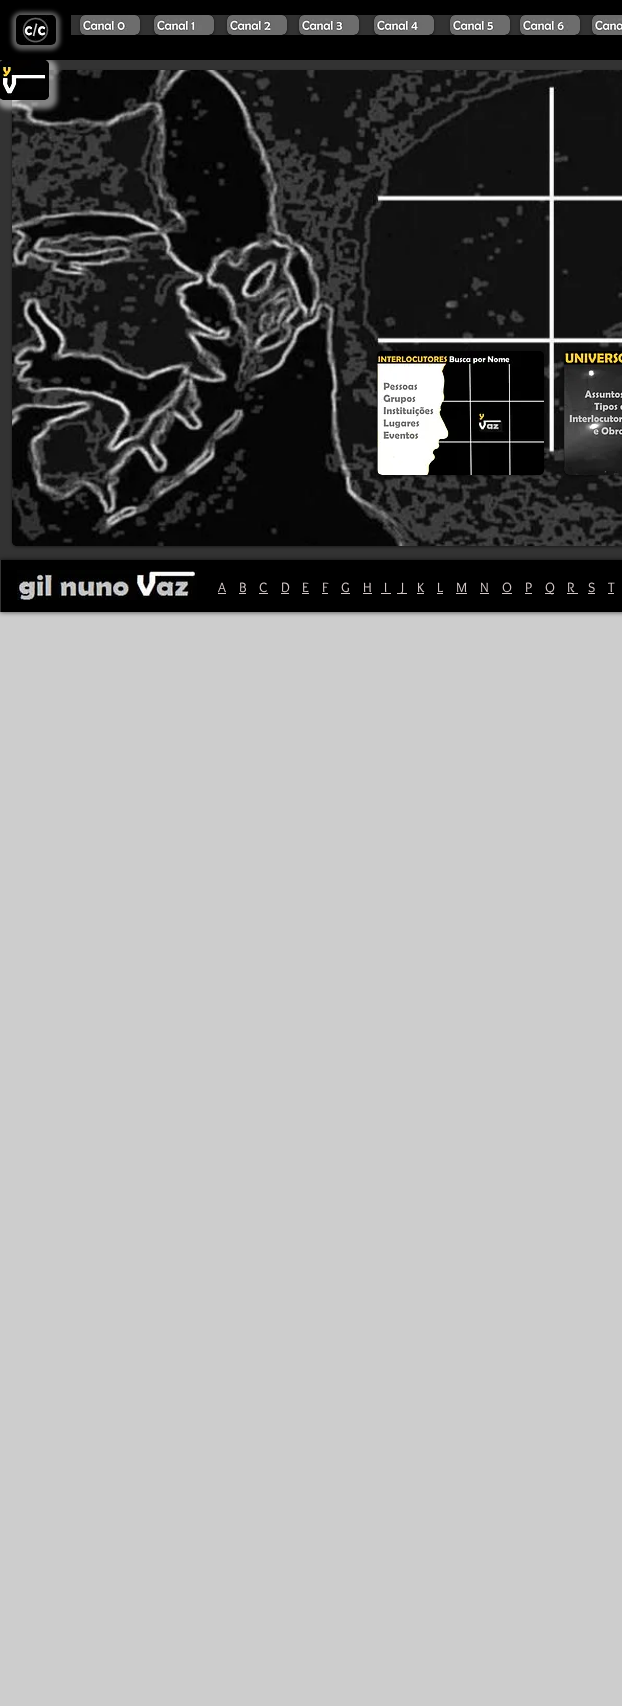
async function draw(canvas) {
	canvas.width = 622;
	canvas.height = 1706;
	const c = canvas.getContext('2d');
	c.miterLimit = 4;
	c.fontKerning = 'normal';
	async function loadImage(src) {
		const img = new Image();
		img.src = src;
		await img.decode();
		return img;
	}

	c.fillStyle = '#cdcdcd';
	c.fillRect(0, 0, 622, 1706);
	c.fillStyle = '#333';
	c.fillRect(0, 60, 622, 500);
	c.fillStyle = '#00000080';
	c.filter = 'blur(1.5px)';
	c.beginPath();
	c.roundRect(12, 71, 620, 476, 5);
	c.fill();
	c.filter = 'none';
	c.fillStyle = '#000';
	c.beginPath();
	c.roundRect(12, 70, 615, 476, 5);
	c.fill();
	c.drawImage(await loadImage('img11.png'), 12, 70, 610, 476);
	c.fillStyle = '#ffffff80';
	c.filter = 'blur(2.5px)';
	c.beginPath();
	c.roundRect(-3, 59, 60, 50, 10);
	c.fill();
	c.filter = 'none';
	c.fillStyle = '#000';
	c.fillRect(0, 0, 622, 60);
	c.fillStyle = '#999999a1';
	c.filter = 'blur(2px)';
	c.beginPath();
	c.roundRect(12, 12, 48, 38, 9);
	c.fill();
	c.filter = 'none';
	c.fillStyle = '#000';
	c.beginPath();
	c.roundRect(16, 15, 40, 30, 5);
	c.fill();
	c.drawImage(await loadImage('img1.png'), 17, 15, 38, 29);
	c.fillStyle = '#333';
	c.fillRect(71, 15, 526, 20);
	c.fillStyle = '#00000080';
	c.filter = 'blur(1.5px)';
	c.beginPath();
	c.roundRect(80, 16, 60, 20, 5);
	c.fill();
	c.filter = 'none';
	c.fillStyle = '#000';
	c.beginPath();
	c.roundRect(80, 15, 60, 20, 5);
	c.fill();
	c.drawImage(await loadImage('img2.png'), 80, 15, 60, 20);
	c.fillStyle = '#00000080';
	c.filter = 'blur(1.5px)';
	c.beginPath();
	c.roundRect(154, 16, 60, 20, 5);
	c.fill();
	c.filter = 'none';
	c.fillStyle = '#000';
	c.beginPath();
	c.roundRect(154, 15, 60, 20, 5);
	c.fill();
	c.drawImage(await loadImage('img3.png'), 154, 15, 60, 20);
	c.fillStyle = '#00000080';
	c.filter = 'blur(1.5px)';
	c.beginPath();
	c.roundRect(227, 16, 60, 20, 5);
	c.fill();
	c.filter = 'none';
	c.fillStyle = '#000';
	c.beginPath();
	c.roundRect(227, 15, 60, 20, 5);
	c.fill();
	c.drawImage(await loadImage('img4.png'), 227, 15, 60, 20);
	c.fillStyle = '#00000080';
	c.filter = 'blur(1.5px)';
	c.beginPath();
	c.roundRect(299, 16, 60, 20, 5);
	c.fill();
	c.filter = 'none';
	c.fillStyle = '#000';
	c.beginPath();
	c.roundRect(299, 15, 60, 20, 5);
	c.fill();
	c.drawImage(await loadImage('img5.png'), 299, 15, 60, 20);
	c.fillStyle = '#00000080';
	c.filter = 'blur(1.5px)';
	c.beginPath();
	c.roundRect(374, 16, 60, 20, 5);
	c.fill();
	c.filter = 'none';
	c.fillStyle = '#000';
	c.beginPath();
	c.roundRect(374, 15, 60, 20, 5);
	c.fill();
	c.drawImage(await loadImage('img6.png'), 374, 15, 60, 20);
	c.fillStyle = '#00000080';
	c.filter = 'blur(1.5px)';
	c.beginPath();
	c.roundRect(450, 16, 60, 20, 5);
	c.fill();
	c.filter = 'none';
	c.fillStyle = '#000';
	c.beginPath();
	c.roundRect(450, 15, 60, 20, 5);
	c.fill();
	c.drawImage(await loadImage('img7.png'), 450, 15, 60, 20);
	c.fillStyle = '#00000080';
	c.filter = 'blur(1.5px)';
	c.beginPath();
	c.roundRect(520, 16, 60, 20, 5);
	c.fill();
	c.filter = 'none';
	c.fillStyle = '#000';
	c.beginPath();
	c.roundRect(520, 15, 60, 20, 5);
	c.fill();
	c.drawImage(await loadImage('img8.png'), 520, 15, 60, 20);
	c.fillStyle = '#00000080';
	c.filter = 'blur(1.5px)';
	c.beginPath();
	c.roundRect(592, 16, 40, 20, 5);
	c.fill();
	c.filter = 'none';
	c.fillStyle = '#000';
	c.beginPath();
	c.roundRect(592, 15, 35, 20, 5);
	c.fill();
	c.drawImage(await loadImage('img9.png'), 592, 15, 30, 20);
	c.beginPath();
	c.roundRect(-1, 60, 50, 40, 5);
	c.fill();
	c.drawImage(await loadImage('img10.png'), 0, 60, 49, 40);
	c.fillStyle = '#00000080';
	c.filter = 'blur(1.5px)';
	c.beginPath();
	c.roundRect(377, 352, 167, 124, 5);
	c.fill();
	c.filter = 'none';
	c.fillStyle = '#000';
	c.beginPath();
	c.roundRect(377, 351, 167, 124, 5);
	c.fill();
	c.drawImage(await loadImage('img12.png'), 377, 351, 167, 124);
	c.fillStyle = '#00000080';
	c.filter = 'blur(1.5px)';
	c.beginPath();
	c.roundRect(564, 352, 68, 124, 5);
	c.fill();
	c.filter = 'none';
	c.fillStyle = '#000';
	c.beginPath();
	c.roundRect(564, 351, 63, 124, 5);
	c.fill();
	c.drawImage(await loadImage('img13.png'), 564, 351, 58, 124);
	c.fillStyle = '#000000b3';
	c.filter = 'blur(2.5px)';
	c.beginPath();
	c.rect(0, 560, 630, 52);
	c.fill();
	c.filter = 'none';
	c.fillStyle = '#333';
	c.fillRect(0, 560, 1, 52);
	c.fillStyle = '#000';
	c.fillRect(1, 560, 621, 52);
	c.drawImage(await loadImage('img14.png'), 17, 570, 180, 30);
	c.font = '14px Overlock';
	c.fillStyle = '#d1c7c7';
	c.fillText('A', 218, 592);
	c.fillRect(218, 593, 8, 1);
	c.fillText('B', 239, 592);
	c.fillRect(239, 593, 7, 1);
	c.fillText('C', 259, 592);
	c.fillRect(259, 593, 9, 1);
	c.fillText('D', 281, 592);
	c.fillRect(281, 593, 8, 1);
	c.fillText('E', 302, 592);
	c.fillRect(302, 593, 7, 1);
	c.fillText('F', 322, 592);
	c.fillRect(322, 593, 6, 1);
	c.fillText('G', 341, 592);
	c.fillRect(341, 593, 9, 1);
	c.fillText('H', 363, 592);
	c.fillRect(363, 593, 9, 1);
	c.fillText('I', 384, 592);
	c.fillRect(381, 593, 10, 1);
	c.fillRect(397, 593, 10, 1);
	c.fillText('J', 401, 592);
	c.fillText('K', 417, 592);
	c.fillRect(417, 593, 7, 1);
	c.fillText('L', 437, 592);
	c.fillRect(437, 593, 6, 1);
	c.fillText('M', 456, 592);
	c.fillRect(456, 593, 11, 1);
	c.fillText('N', 480, 592);
	c.fillRect(480, 593, 9, 1);
	c.fillText('O', 502, 592);
	c.fillRect(502, 593, 10, 1);
	c.fillText('P', 525, 592);
	c.fillRect(525, 593, 7, 1);
	c.fillRect(545, 593, 9, 1);
	c.fillText('Q', 545, 592);
	c.fillText('R', 567, 592);
	c.fillRect(567, 593, 11, 1);
	c.fillText('S', 588, 592);
	c.fillRect(588, 593, 7, 1);
	c.fillText('T', 608, 592);
	c.fillRect(608, 593, 6, 1);
}

draw(document.querySelector('canvas'));
